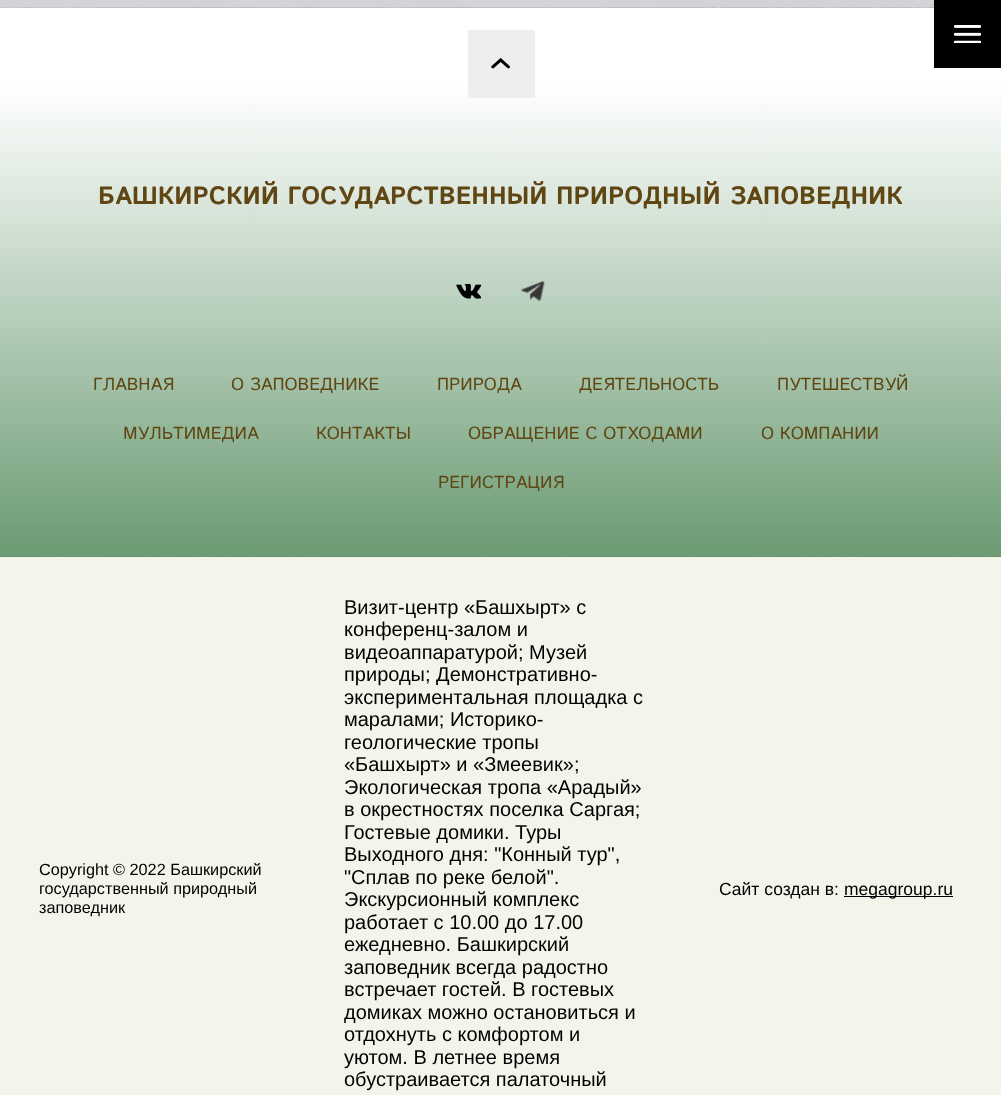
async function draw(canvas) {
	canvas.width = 1001;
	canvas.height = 1095;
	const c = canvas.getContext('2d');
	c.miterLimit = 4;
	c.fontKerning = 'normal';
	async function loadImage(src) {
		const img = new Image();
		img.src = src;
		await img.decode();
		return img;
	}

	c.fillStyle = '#f2f5ea';
	c.fillRect(0, 0, 1001, 1095);
	c.drawImage(await loadImage('img1.png'), 0, 0, 934, 8);
	c.drawImage(await loadImage('img3.png'), 0, 8, 1001, 549);
	c.fillStyle = '#000';
	c.fillRect(934, 0, 67, 68);
	c.drawImage(await loadImage('img2.png'), 954, 25, 27, 18);
	c.fillStyle = '#eee';
	c.fillRect(468, 30, 67, 68);
	c.drawImage(await loadImage('img4.png'), 491, 58, 19, 11);
	c.font = 'bold 25px Istok Web';
	c.fillStyle = '#5f4612';
	c.fillText('БАШКИРСКИЙ ГОСУДАРСТВЕННЫЙ ПРИРОДНЫЙ ЗАПОВЕДНИК', 98, 204);
	c.drawImage(await loadImage('img5.png'), 456, 283, 25, 16);
	c.drawImage(await loadImage('img6.png'), 521, 281, 24, 21);
	c.font = '17.5px Istok Web';
	for (const [text, x, y] of [
		['ГЛАВНАЯ', 93, 390],
		['О ЗАПОВЕДНИКЕ', 231, 390],
		['ПРИРОДА', 437, 390],
		['ДЕЯТЕЛЬНОСТЬ', 579, 390],
		['ПУТЕШЕСТВУЙ', 777, 390],
		['МУЛЬТИМЕДИА', 123, 439],
		['КОНТАКТЫ', 316, 439],
		['ОБРАЩЕНИЕ С ОТХОДАМИ', 468, 439],
		['О КОМПАНИИ', 761, 439],
		['РЕГИСТРАЦИЯ', 438, 488],
	]) {
		c.fillText(text, x, y);
	}
	c.font = '16.25px Liberation Sans';
	c.fillStyle = '#000';
	for (const [text, x, y] of [
		['Copyright © 2022 Башкирский', 39, 875],
		['государственный природный', 39, 894],
		['заповедник', 39, 913],
	]) {
		c.fillText(text, x, y);
	}
	c.font = '20px Liberation Sans';
	for (const [text, x, y] of [
		['Визит-центр «Башхырт» с', 344, 614],
		['конференц-залом и', 344, 636],
		['видеоаппаратурой; Музей', 344, 659],
		['природы; Демонстративно-', 344, 681],
		['экспериментальная площадка с', 344, 704],
		['маралами; Историко-', 344, 726],
		['геологические тропы', 344, 749],
		['«Башхырт» и «Змеевик»;', 344, 771],
		['Экологическая тропа «Арадый»', 344, 794],
		['в окрестностях поселка Саргая;', 344, 816],
		['Гостевые домики. Туры', 344, 839],
		['Выходного дня: "Конный тур",', 344, 861],
		['"Сплав по реке белой".', 344, 884],
		['Экскурсионный комплекс', 344, 906],
		['работает с 10.00 до 17.00', 344, 929],
		['ежедневно. Башкирский', 344, 951],
		['заповедник всегда радостно', 344, 974],
		['встречает гостей. В гостевых', 344, 996],
		['домиках можно остановиться и', 344, 1019],
		['отдохнуть с комфортом и', 344, 1041],
		['уютом. В летнее время', 344, 1064],
		['обустраивается палаточный', 344, 1086],
	]) {
		c.fillText(text, x, y);
	}
	c.font = '17.5px Liberation Sans';
	c.fillText('Сайт создан в:', 719, 895);
	c.fillRect(844, 896, 109, 1);
	c.fillText('megagroup.ru', 844, 895);
}

draw(document.querySelector('canvas'));
